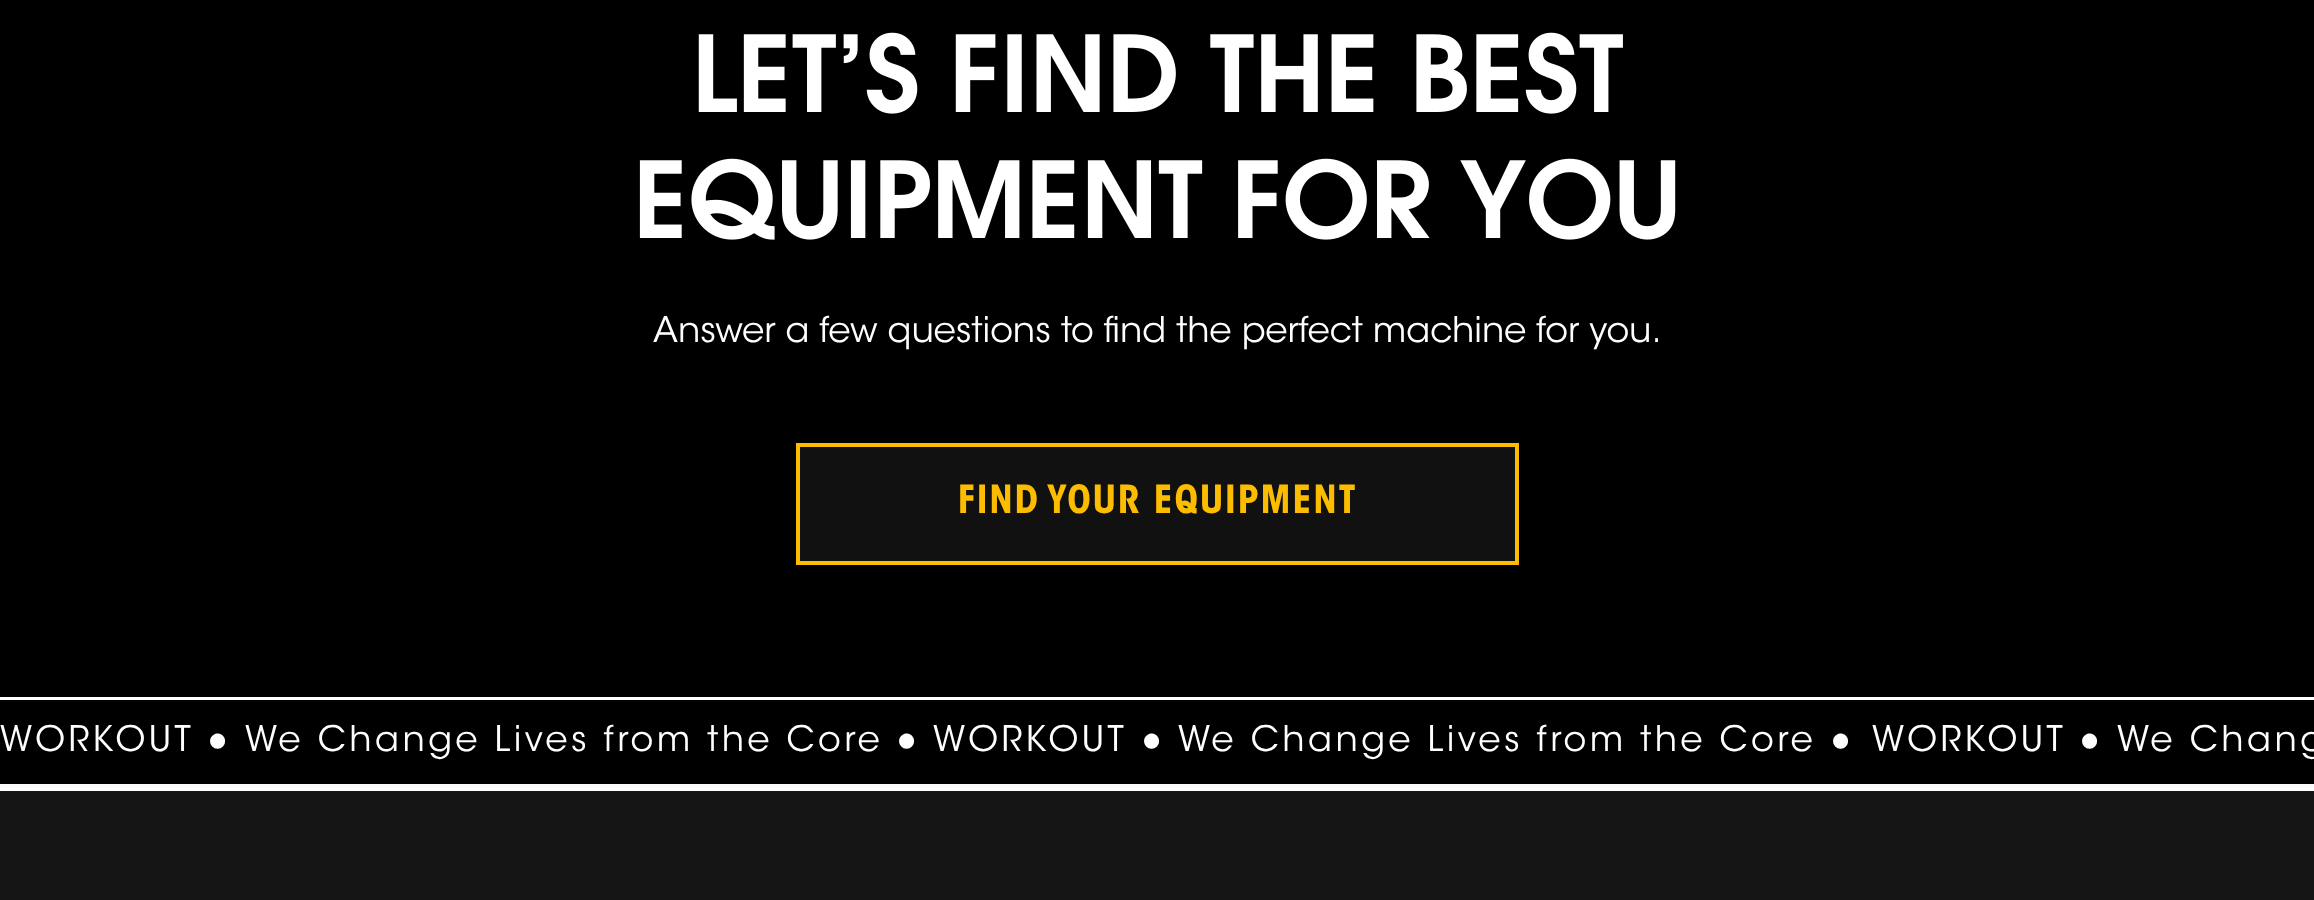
async function draw(canvas) {
	canvas.width = 2314;
	canvas.height = 900;
	const c = canvas.getContext('2d');
	c.miterLimit = 4;
	c.fontKerning = 'normal';
	async function loadImage(src) {
		const img = new Image();
		img.src = src;
		await img.decode();
		return img;
	}

	c.fillStyle = '#fafafa';
	c.fillRect(0, 0, 2314, 900);
	c.fillStyle = '#000';
	c.fillRect(0, 0, 2314, 697);
	c.drawImage(await loadImage('img1.png'), 698, 32, 925, 82);
	c.drawImage(await loadImage('img2.png'), 639, 158, 1037, 82);
	c.font = '300 35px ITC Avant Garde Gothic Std';
	c.fillStyle = '#fff';
	c.fillText('Answer a few questions to find the perfect machine for you.', 653, 342);
	c.fillStyle = '#111';
	c.beginPath();
	c.rect(798, 445, 719, 118);
	c.fill();
	c.strokeStyle = '#fcbd00';
	c.lineWidth = 4;
	c.stroke();
	c.letterSpacing = '1.75px';
	c.font = 'bold 38.5px ITC Avant Garde Gothic Std';
	c.fillStyle = '#fcbd00';
	c.fillText('FIND YOUR EQUIPMENT', 958, 513);
	for (const [x, y, w, h, color] of [
		[0, 697, 2314, 3, '#fff'],
		[0, 788, 2314, 3, '#fff'],
		[0, 700, 2314, 84, '#000'],
	]) {
		c.fillStyle = color;
		c.fillRect(x, y, w, h);
	}
	c.letterSpacing = '3.5px';
	c.font = '300 35px ITC Avant Garde Gothic Std';
	c.fillStyle = '#fff';
	c.fillText('WORKOUT', 0, 751);
	c.font = '35px Liberation Serif';
	c.fillText('●', 207, 751);
	c.font = '300 35px ITC Avant Garde Gothic Std';
	c.fillText('We Change Lives from the Core', 245, 751);
	c.font = '35px Liberation Serif';
	c.fillText('●', 896, 751);
	c.font = '300 35px ITC Avant Garde Gothic Std';
	c.fillText('WORKOUT', 933, 751);
	c.font = '35px Liberation Serif';
	c.fillText('●', 1141, 751);
	c.font = '300 35px ITC Avant Garde Gothic Std';
	c.fillText('We Change Lives from the Core', 1178, 751);
	c.font = '35px Liberation Serif';
	c.fillText('●', 1830, 751);
	c.font = '300 35px ITC Avant Garde Gothic Std';
	c.fillText('WORKOUT', 1872, 751);
	c.font = '35px Liberation Serif';
	c.fillText('●', 2079, 751);
	c.font = '300 35px ITC Avant Garde Gothic Std';
	c.fillText('We Chang', 2117, 751);
	c.fillStyle = '#151515';
	c.fillRect(0, 791, 2314, 109);
}

draw(document.querySelector('canvas'));
